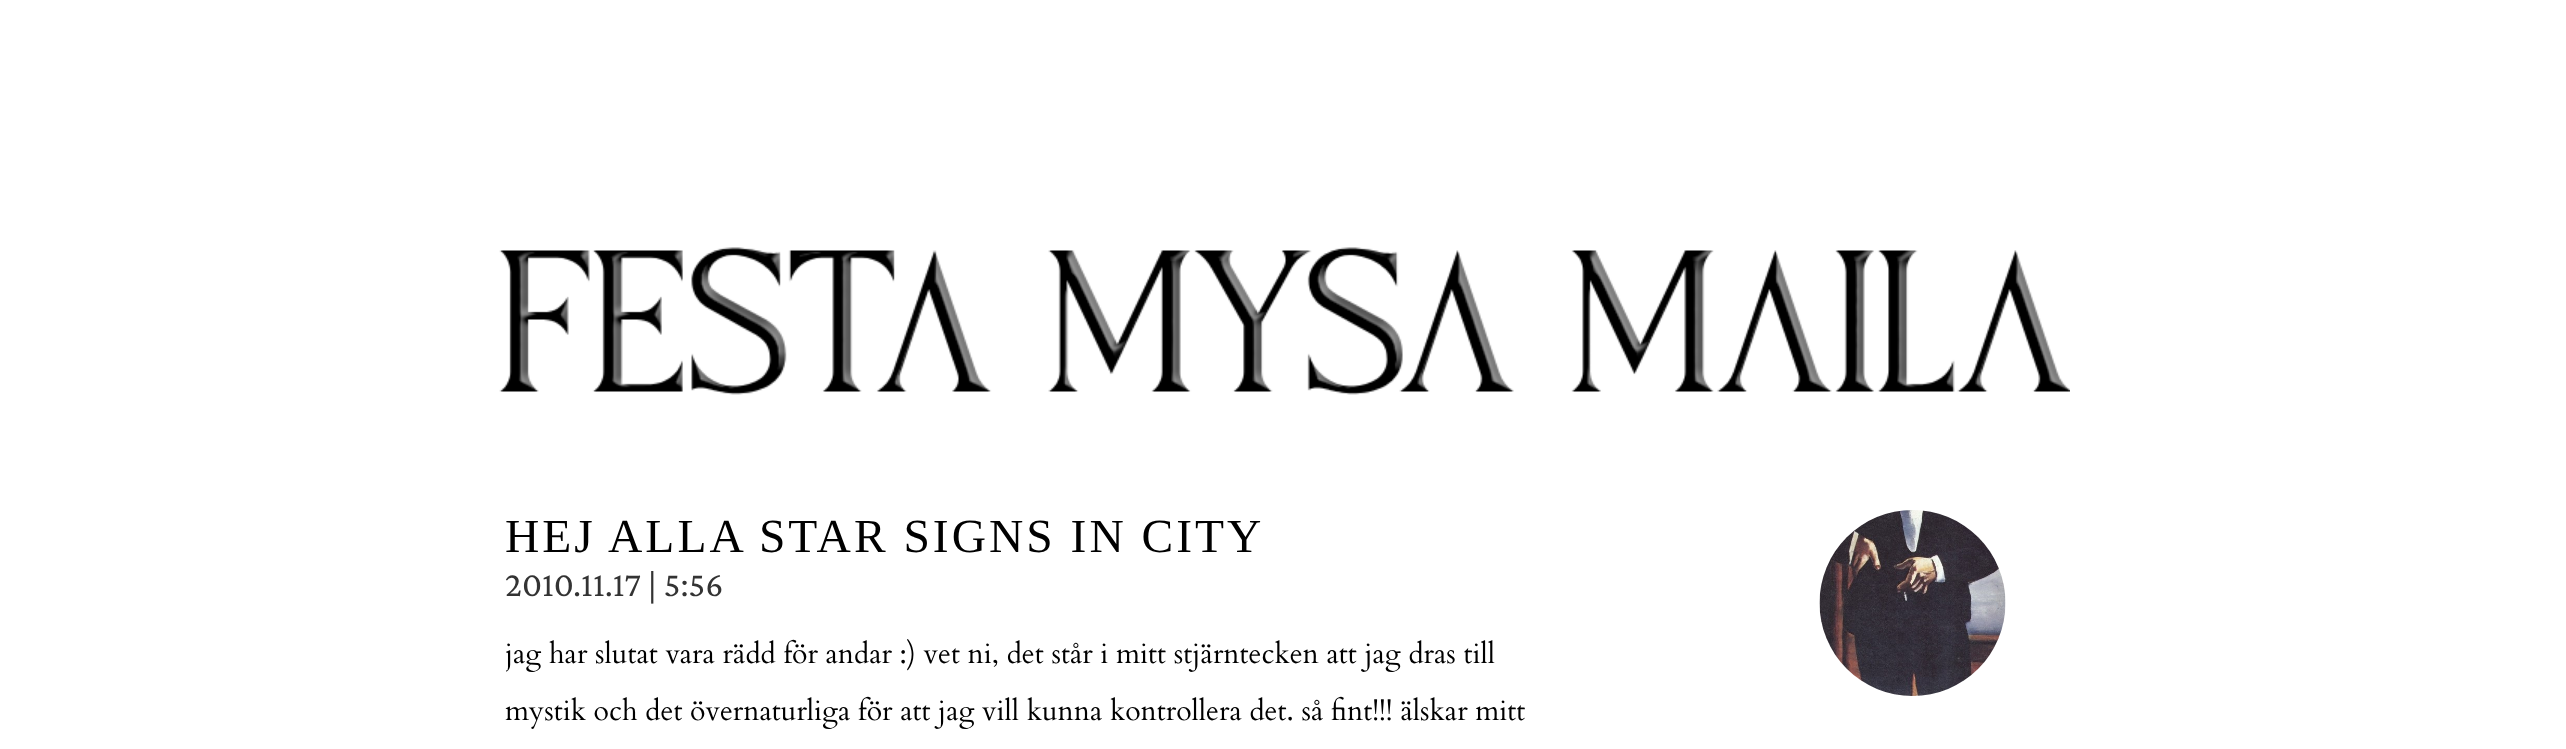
async function draw(canvas) {
	canvas.width = 2566;
	canvas.height = 749;
	const c = canvas.getContext('2d');
	c.miterLimit = 4;
	c.fontKerning = 'normal';
	async function loadImage(src) {
		const img = new Image();
		img.src = src;
		await img.decode();
		return img;
	}

	c.fillStyle = '#fff';
	c.fillRect(0, 0, 2566, 749);
	c.drawImage(await loadImage('img1.png'), 499, 247, 1571, 148);
	c.letterSpacing = '3px';
	c.font = '47.5px Liberation Serif';
	c.fillStyle = '#000';
	c.fillText('HEJ ALLA STAR SIGNS IN CITY', 505, 552);
	c.letterSpacing = '0px';
	c.font = '35.5px Crimson Pro';
	c.fillStyle = '#333';
	c.fillText('2010.11.17 | 5:56', 505, 596);
	c.save();
	c.beginPath();
	c.rect(506, 603, 1035, 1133);
	c.clip();
	c.font = '28.5px Cardo';
	c.fillStyle = '#000';
	c.fillText('jag har slutat vara rädd för andar :) vet ni, det står i mitt stjärntecken att jag dras till', 505, 663);
	c.restore();
	c.font = '28.5px Cardo';
	c.fillStyle = '#000';
	c.fillText('mystik och det övernaturliga för att jag vill kunna kontrollera det. så fint!!! älskar mitt', 505, 720);
	c.drawImage(await loadImage('img2.png'), 1819, 510, 187, 186);
}

draw(document.querySelector('canvas'));
